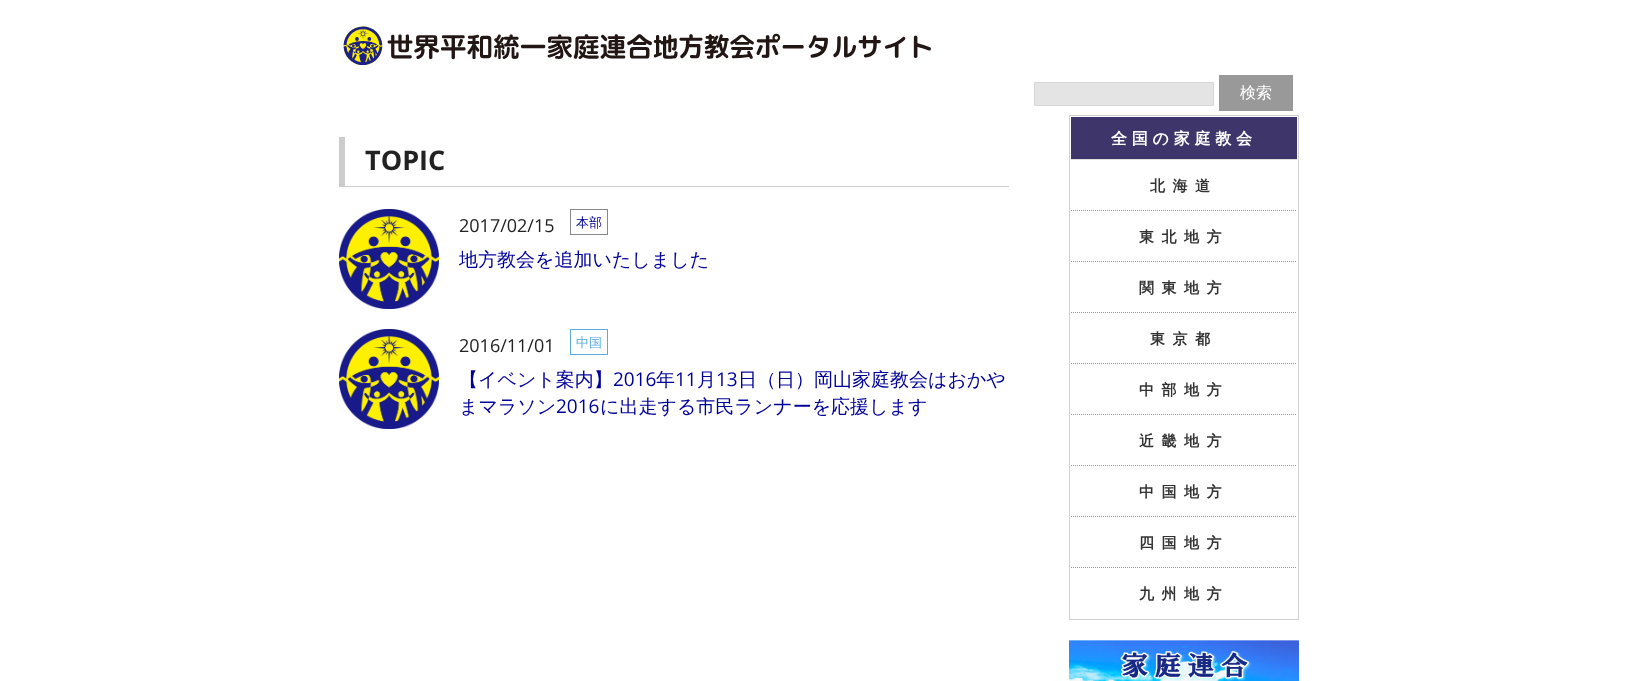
async function draw(canvas) {
	canvas.width = 1638;
	canvas.height = 681;
	const c = canvas.getContext('2d');
	c.miterLimit = 4;
	c.fontKerning = 'normal';
	async function loadImage(src) {
		const img = new Image();
		img.src = src;
		await img.decode();
		return img;
	}

	c.fillStyle = '#fff';
	c.fillRect(0, 0, 1638, 681);
	c.drawImage(await loadImage('img1.png'), 343, 26, 588, 39);
	c.fillStyle = '#e4e4e4';
	c.beginPath();
	c.rect(1034.5, 82.5, 179, 23);
	c.fill();
	c.strokeStyle = '#d6d6d6';
	c.stroke();
	c.fillStyle = '#999';
	c.fillRect(1219, 75, 74, 36);
	c.font = '500 16px WenQuanYi Zen Hei';
	c.fillStyle = '#fff';
	c.fillText('検索', 1240, 98);
	c.fillStyle = '#ccc';
	c.fillRect(339, 186, 670, 1);
	c.fillRect(339, 137, 6, 50);
	c.font = 'bold 27px Open Sans';
	c.fillStyle = '#222';
	c.fillText('TOPIC', 365, 170);
	c.drawImage(await loadImage('img2.png'), 339, 209, 100, 100);
	c.font = '18px Open Sans';
	c.fillText('2017/02/15', 459, 232);
	c.strokeStyle = '#888';
	c.strokeRect(570.5, 209.5, 37, 25);
	c.font = '500 13px WenQuanYi Zen Hei';
	c.fillStyle = '#009';
	c.fillText('本部', 576, 227);
	c.font = '500 19px WenQuanYi Zen Hei';
	c.fillText('地方教会を追加いたしました', 459, 266);
	c.drawImage(await loadImage('img3.png'), 339, 329, 100, 100);
	c.font = '18px Open Sans';
	c.fillStyle = '#222';
	c.fillText('2016/11/01', 459, 352);
	c.strokeStyle = '#5babe1';
	c.strokeRect(570.5, 329.5, 37, 25);
	c.font = '500 13px WenQuanYi Zen Hei';
	c.fillStyle = '#5babe1';
	c.fillText('中国', 576, 347);
	c.font = '500 19px WenQuanYi Zen Hei';
	c.fillStyle = '#009';
	c.fillText('【イベント案内】', 459, 386);
	c.font = '19px Open Sans';
	c.fillText('2016', 613, 386);
	c.font = '500 19px WenQuanYi Zen Hei';
	c.fillText('年', 656, 386);
	c.font = '19px Open Sans';
	c.fillText('11', 675, 386);
	c.font = '500 19px WenQuanYi Zen Hei';
	c.fillText('月', 697, 386);
	c.font = '19px Open Sans';
	c.fillText('13', 716, 386);
	c.font = '500 19px WenQuanYi Zen Hei';
	c.fillText('日（日）岡山家庭教会はおかや', 738, 386);
	c.fillText('まマラソン', 459, 413);
	c.font = '19px Open Sans';
	c.fillText('2016', 556, 413);
	c.font = '500 19px WenQuanYi Zen Hei';
	c.fillText('に出走する市民ランナーを応援します', 600, 413);
	c.strokeStyle = '#d1d1d1';
	c.strokeRect(1069.5, 115.5, 229, 504);
	c.fillStyle = '#3e356a';
	c.fillRect(1071, 117, 226, 42);
	c.letterSpacing = '4.75px';
	c.font = 'bold 16px WenQuanYi Zen Hei';
	c.fillStyle = '#fff';
	c.fillText('全国の家庭教会', 1111, 144);
	c.fillStyle = '#ddd';
	c.fillRect(1071, 159, 226, 1);
	c.beginPath();
	c.moveTo(1071, 210.5);
	c.lineTo(1297, 210.5);
	c.strokeStyle = '#999';
	c.setLineDash([1, 1]);
	c.stroke();
	c.letterSpacing = '7.5px';
	c.font = 'bold 15px WenQuanYi Zen Hei';
	c.fillStyle = '#333';
	c.fillText('北海道', 1150, 191);
	c.beginPath();
	c.moveTo(1071, 261.5);
	c.lineTo(1297, 261.5);
	c.stroke();
	c.fillText('東北地方', 1139, 242);
	c.beginPath();
	c.moveTo(1071, 312.5);
	c.lineTo(1297, 312.5);
	c.stroke();
	c.fillText('関東地方', 1139, 293);
	c.beginPath();
	c.moveTo(1071, 363.5);
	c.lineTo(1297, 363.5);
	c.stroke();
	c.fillText('東京都', 1150, 344);
	c.beginPath();
	c.moveTo(1071, 414.5);
	c.lineTo(1297, 414.5);
	c.stroke();
	c.fillText('中部地方', 1139, 395);
	c.beginPath();
	c.moveTo(1071, 465.5);
	c.lineTo(1297, 465.5);
	c.stroke();
	c.fillText('近畿地方', 1139, 446);
	c.beginPath();
	c.moveTo(1071, 516.5);
	c.lineTo(1297, 516.5);
	c.stroke();
	c.fillText('中国地方', 1139, 497);
	c.beginPath();
	c.moveTo(1071, 567.5);
	c.lineTo(1297, 567.5);
	c.stroke();
	c.fillText('四国地方', 1139, 548);
	c.fillText('九州地方', 1139, 599);
	c.drawImage(await loadImage('img4.png'), 1069, 640, 230, 41);
}

draw(document.querySelector('canvas'));
